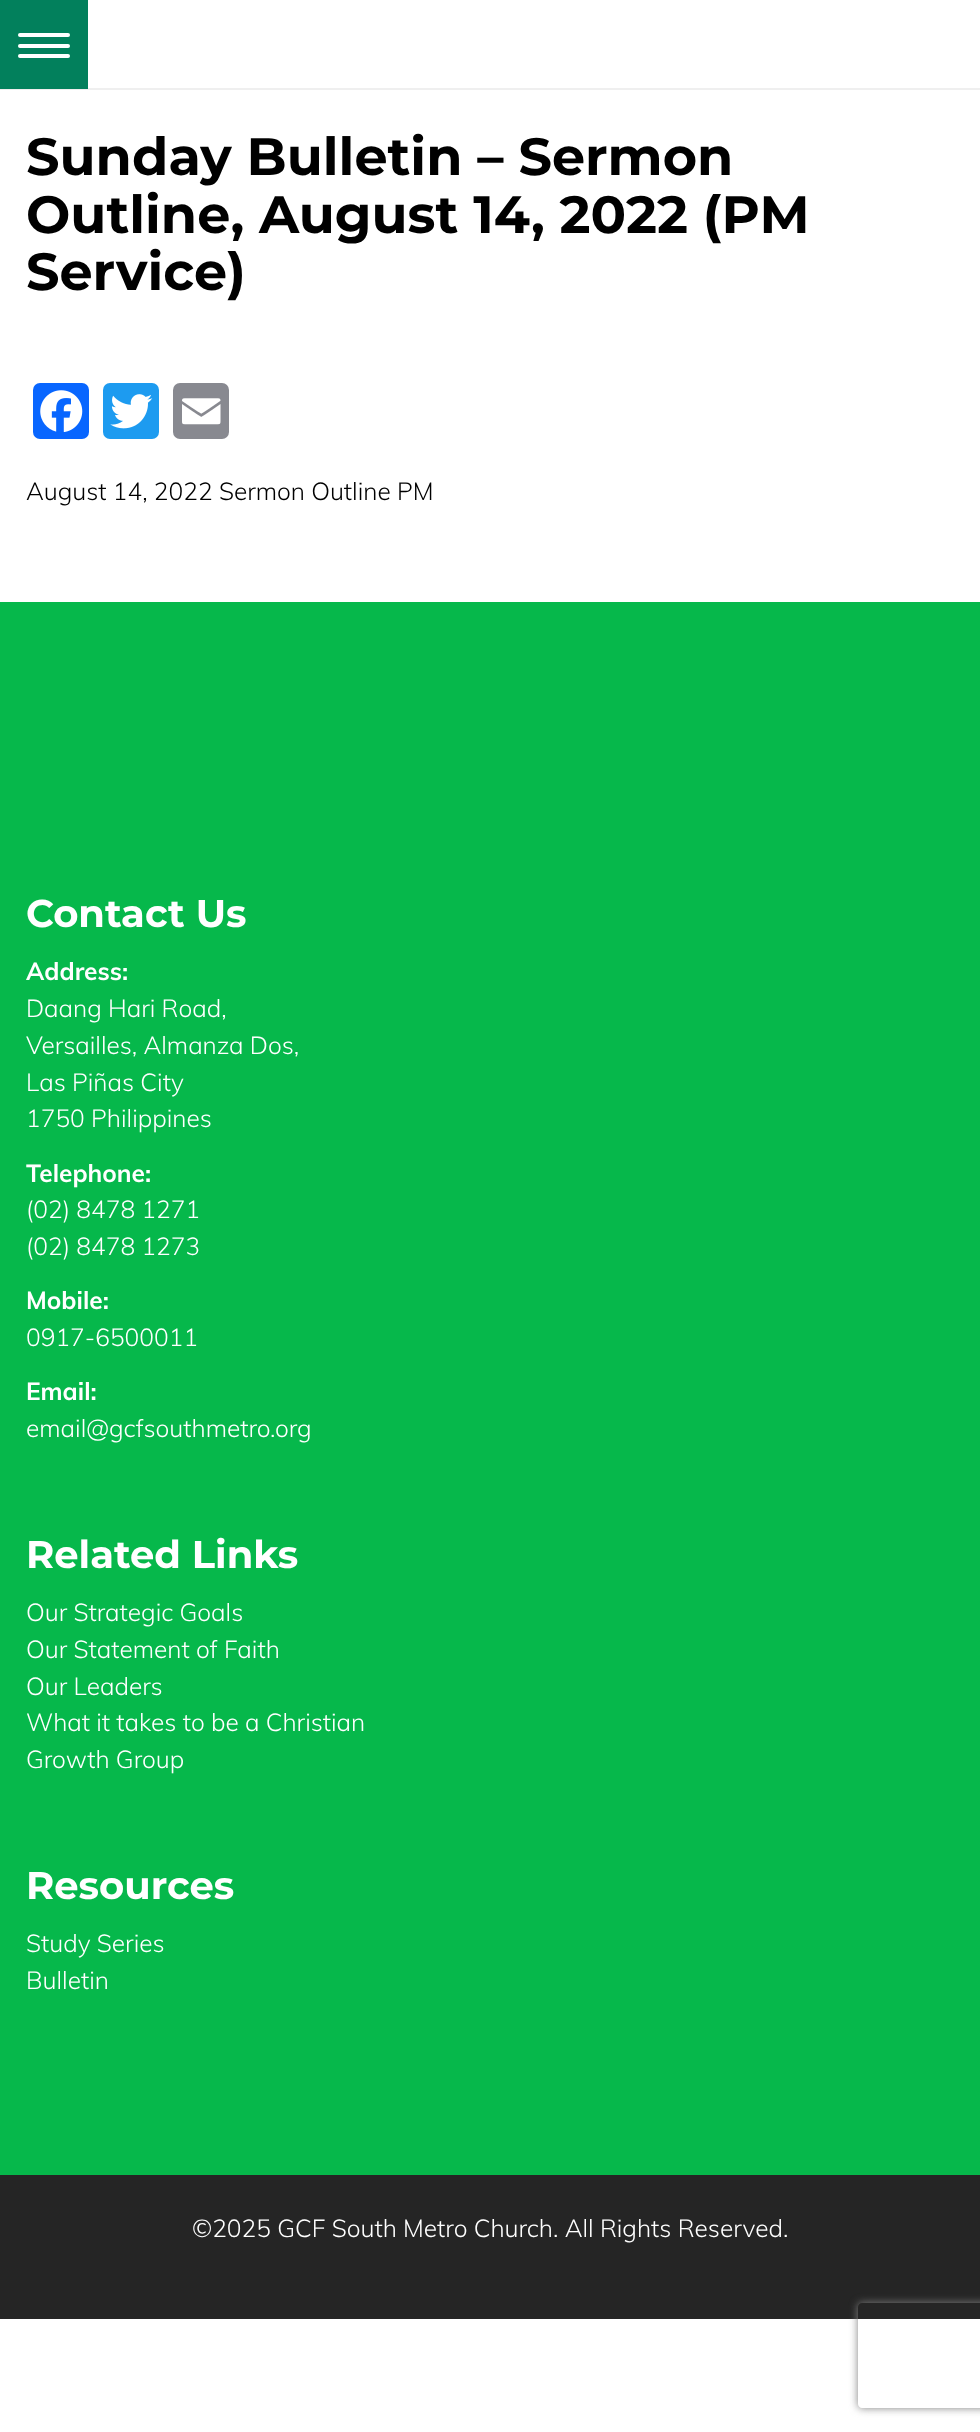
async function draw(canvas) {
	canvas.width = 980;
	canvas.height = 2432;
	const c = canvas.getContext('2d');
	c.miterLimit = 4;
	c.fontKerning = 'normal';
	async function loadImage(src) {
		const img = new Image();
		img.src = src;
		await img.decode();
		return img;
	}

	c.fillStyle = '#fff';
	c.fillRect(0, 0, 980, 2432);
	c.fillStyle = '#efefef';
	c.fillRect(0, 88, 980, 2);
	c.fillStyle = '#02805c';
	c.fillRect(0, 0, 88, 89);
	c.fillStyle = '#fff';
	c.beginPath();
	c.roundRect(18, 33, 52, 4, 2);
	c.fill();
	c.beginPath();
	c.roundRect(18, 44, 52, 4, 2);
	c.fill();
	c.beginPath();
	c.roundRect(18, 54, 52, 4, 2);
	c.fill();
	c.font = 'bold 52.5px Montserrat';
	c.fillStyle = '#000';
	for (const [text, x, y] of [
		['Sunday Bulletin – Sermon', 26, 175],
		['Outline, August 14, 2022 (PM', 26, 233],
		['Service)', 26, 290],
	]) {
		c.fillText(text, x, y);
	}
	c.fillStyle = '#0866ff';
	c.beginPath();
	c.roundRect(33, 383, 56, 56, 7);
	c.fill();
	c.drawImage(await loadImage('img1.png'), 40, 390, 43, 42);
	c.fillStyle = '#1d9bf0';
	c.beginPath();
	c.roundRect(103, 383, 56, 56, 7);
	c.fill();
	c.drawImage(await loadImage('img2.png'), 110, 394, 43, 35);
	c.fillStyle = '#888990';
	c.beginPath();
	c.roundRect(173, 383, 56, 56, 7);
	c.fill();
	c.drawImage(await loadImage('img3.png'), 182, 398, 39, 27);
	c.font = '300 24.5px Muli';
	c.fillStyle = '#000';
	c.fillText('August 14, 2022 Sermon Outline PM', 26, 500);
	c.fillStyle = '#06b84b';
	c.fillRect(0, 602, 980, 1573);
	c.font = 'bold 38.5px Montserrat';
	c.fillStyle = '#fff';
	c.fillText('Contact Us', 26, 927);
	c.font = 'bold 24.5px Muli';
	c.fillText('Address:', 26, 980);
	c.font = '300 24.5px Muli';
	for (const [text, x, y] of [
		['Daang Hari Road,', 26, 1017],
		['Versailles, Almanza Dos,', 26, 1054],
		['Las Piñas City', 26, 1091],
		['1750 Philippines', 26, 1127],
	]) {
		c.fillText(text, x, y);
	}
	c.font = 'bold 24.5px Muli';
	c.fillText('Telephone:', 26, 1182);
	c.font = '300 24.5px Muli';
	c.fillText('(02) 8478 1271', 26, 1218);
	c.fillText('(02) 8478 1273', 26, 1255);
	c.font = 'bold 24.5px Muli';
	c.fillText('Mobile:', 26, 1309);
	c.font = '300 24.5px Muli';
	c.fillText('0917-6500011', 26, 1346);
	c.font = 'bold 24.5px Muli';
	c.fillText('Email:', 26, 1400);
	c.font = '300 24.5px Muli';
	c.fillText('email@gcfsouthmetro.org', 26, 1437);
	c.font = 'bold 38.5px Montserrat';
	c.fillText('Related Links', 26, 1568);
	c.font = '300 24.5px Muli';
	for (const [text, x, y] of [
		['Our Strategic Goals', 26, 1621],
		['Our Statement of Faith', 26, 1658],
		['Our Leaders', 26, 1695],
		['What it takes to be a Christian', 26, 1731],
		['Growth Group', 26, 1768],
	]) {
		c.fillText(text, x, y);
	}
	c.font = 'bold 38.5px Montserrat';
	c.fillText('Resources', 26, 1899);
	c.font = '300 24.5px Muli';
	c.fillText('Study Series', 26, 1952);
	c.fillText('Bulletin', 26, 1989);
	c.fillStyle = '#252525';
	c.fillRect(0, 2175, 980, 144);
	c.fillStyle = '#fff';
	c.fillText('©2025 GCF South Metro Church. All Rights Reserved.', 192, 2237);
	c.save();
	c.beginPath();
	c.moveTo(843, 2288);
	c.lineTo(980, 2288);
	c.lineTo(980, 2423);
	c.lineTo(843, 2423);
	c.closePath();
	c.moveTo(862, 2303);
	c.lineTo(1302, 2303);
	c.bezierCurveTo(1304, 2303, 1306, 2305, 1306, 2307);
	c.lineTo(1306, 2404);
	c.bezierCurveTo(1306, 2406, 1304, 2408, 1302, 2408);
	c.lineTo(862, 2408);
	c.bezierCurveTo(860, 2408, 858, 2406, 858, 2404);
	c.lineTo(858, 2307);
	c.bezierCurveTo(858, 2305, 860, 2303, 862, 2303);
	c.closePath();
	c.clip('evenodd');
	c.fillStyle = '#808080';
	c.filter = 'blur(4.5px)';
	c.beginPath();
	c.roundRect(858, 2303, 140, 105, 4);
	c.fill();
	c.filter = 'none';
	c.restore();
}

draw(document.querySelector('canvas'));
